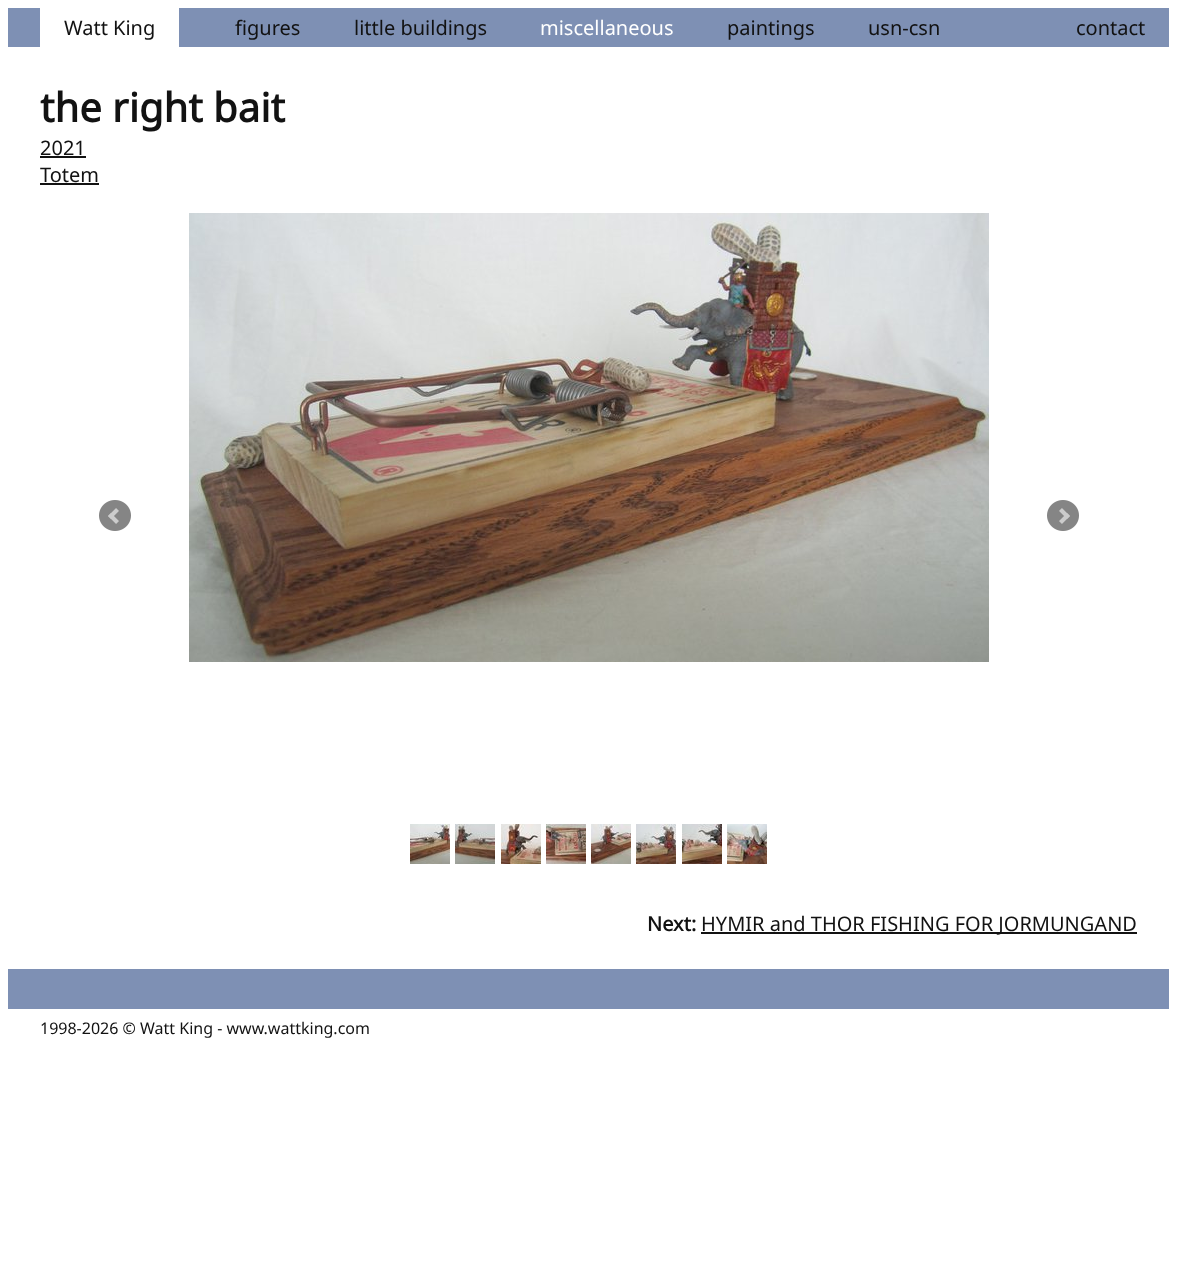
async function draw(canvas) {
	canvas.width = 1177;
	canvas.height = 1270;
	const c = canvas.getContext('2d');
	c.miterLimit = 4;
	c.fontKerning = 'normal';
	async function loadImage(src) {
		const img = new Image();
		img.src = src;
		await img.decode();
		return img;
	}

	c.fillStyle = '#fff';
	c.fillRect(0, 0, 1177, 1270);
	c.fillStyle = '#7e90b4';
	c.fillRect(8, 8, 1161, 39);
	c.fillStyle = '#fff';
	c.fillRect(40, 8, 139, 39);
	c.font = '20px Noto Sans';
	c.fillStyle = '#121212';
	for (const [text, x, y] of [
		['Watt King', 64, 35],
		['figures', 235, 35],
		['little buildings', 354, 35],
	]) {
		c.fillText(text, x, y);
	}
	c.fillStyle = '#fff';
	c.fillText('miscellaneous', 540, 35);
	c.fillStyle = '#121212';
	for (const [text, x, y] of [
		['paintings', 727, 35],
		['usn-csn', 868, 35],
		['contact', 1076, 35],
	]) {
		c.fillText(text, x, y);
	}
	c.font = 'bold 40px Noto Sans';
	c.fillText('the right bait', 40, 122);
	c.font = '20px Noto Sans';
	c.fillText('2021', 40, 155);
	c.fillRect(40, 156, 46, 2);
	c.fillText('Totem', 40, 182);
	c.fillRect(40, 183, 59, 2);
	c.drawImage(await loadImage('img1.png'), 189, 213, 800, 449);
	c.drawImage(await loadImage('img2.png'), 99, 500, 32, 31);
	c.drawImage(await loadImage('img3.png'), 1047, 500, 32, 31);
	c.drawImage(await loadImage('img4.png'), 410, 824, 40, 40);
	c.drawImage(await loadImage('img5.png'), 455, 824, 40, 40);
	c.drawImage(await loadImage('img6.png'), 501, 824, 40, 40);
	c.drawImage(await loadImage('img7.png'), 546, 824, 40, 40);
	c.drawImage(await loadImage('img8.png'), 591, 824, 40, 40);
	c.drawImage(await loadImage('img9.png'), 636, 824, 40, 40);
	c.drawImage(await loadImage('img10.png'), 682, 824, 40, 40);
	c.drawImage(await loadImage('img11.png'), 727, 824, 40, 40);
	c.font = 'bold 20px Noto Sans';
	c.fillText('Next:', 647, 931);
	c.fillRect(701, 932, 436, 2);
	c.font = '20px Noto Sans';
	c.fillText('HYMIR and THOR FISHING FOR JORMUNGAND', 701, 931);
	c.fillStyle = '#7e90b4';
	c.fillRect(8, 969, 1161, 40);
	c.font = '16px Noto Sans';
	c.fillStyle = '#121212';
	c.fillText('1998-2026 © Watt King - www.wattking.com', 40, 1034);
}

draw(document.querySelector('canvas'));
